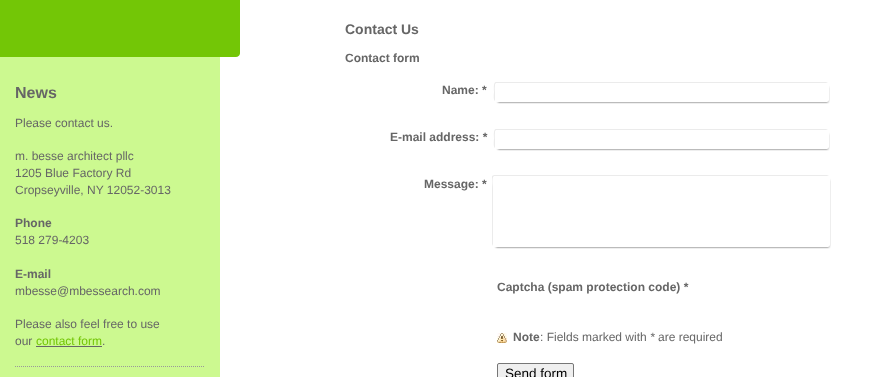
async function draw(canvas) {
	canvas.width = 896;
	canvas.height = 377;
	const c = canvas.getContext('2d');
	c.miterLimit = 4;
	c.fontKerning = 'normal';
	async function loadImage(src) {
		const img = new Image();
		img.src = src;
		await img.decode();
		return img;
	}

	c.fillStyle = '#ccf990';
	c.fillRect(0, 0, 896, 377);
	c.fillStyle = '#fff';
	c.fillRect(220, 0, 676, 377);
	c.fillStyle = '#73c606';
	c.fillRect(0, 0, 240, 57);
	c.drawImage(await loadImage('img1.png'), 236, 53, 4, 4);
	c.font = 'bold 16px Liberation Sans';
	c.fillStyle = '#666';
	c.fillText('News', 15, 98);
	c.font = '12px Liberation Sans';
	for (const [text, x, y] of [
		['Please contact us.', 15, 127],
		['m. besse architect pllc', 15, 160],
		['1205 Blue Factory Rd', 15, 177],
		['Cropseyville, NY 12052-3013', 15, 194],
	]) {
		c.fillText(text, x, y);
	}
	c.font = 'bold 12px Liberation Sans';
	c.fillText('Phone', 15, 227);
	c.font = '12px Liberation Sans';
	c.fillText('518 279-4203', 15, 244);
	c.font = 'bold 12px Liberation Sans';
	c.fillText('E-mail', 15, 278);
	c.font = '12px Liberation Sans';
	for (const [text, x, y] of [
		['mbesse@mbessearch.com', 15, 295],
		['Please also feel free to use', 15, 328],
		['our', 15, 345],
	]) {
		c.fillText(text, x, y);
	}
	c.fillStyle = '#73c606';
	c.fillText('contact form', 36, 345);
	c.fillStyle = '#666';
	c.fillRect(36, 346, 66, 1);
	c.fillText('.', 102, 345);
	c.beginPath();
	c.moveTo(15, 366.5);
	c.lineTo(205, 366.5);
	c.strokeStyle = '#999';
	c.setLineDash([1, 1]);
	c.stroke();
	c.font = 'bold 14px Liberation Sans';
	c.fillText('Contact Us', 345, 34);
	c.font = 'bold 12px Liberation Sans';
	c.fillText('Contact form', 345, 62);
	c.fillStyle = '#ebebeb';
	c.beginPath();
	c.moveTo(496, 82);
	c.bezierCurveTo(493, 82, 494, 90, 494, 92);
	c.bezierCurveTo(494, 93, 493, 100, 495, 101);
	c.lineTo(495, 92);
	c.bezierCurveTo(495, 91, 494, 83, 497, 83);
	c.lineTo(828, 83);
	c.lineTo(826, 82);
	c.closePath();
	c.fill();
	c.fillStyle = '#000000cc';
	c.filter = 'blur(1px)';
	c.beginPath();
	c.rect(498, 87, 330, 15);
	c.fill();
	c.filter = 'none';
	c.fillStyle = '#666';
	c.fillText('Name: *', 442, 94);
	c.fillStyle = '#fff';
	c.beginPath();
	c.roundRect(495, 83, 334, 19, 2);
	c.fill();
	c.fillStyle = '#ebebeb';
	c.beginPath();
	c.moveTo(496, 129);
	c.bezierCurveTo(493, 129, 494, 137, 494, 138);
	c.bezierCurveTo(494, 140, 493, 147, 495, 148);
	c.lineTo(495, 140);
	c.bezierCurveTo(495, 138, 494, 130, 497, 130);
	c.lineTo(828, 130);
	c.lineTo(826, 129);
	c.closePath();
	c.fill();
	c.fillStyle = '#000000cc';
	c.filter = 'blur(1px)';
	c.beginPath();
	c.rect(498, 134, 330, 15);
	c.fill();
	c.filter = 'none';
	c.fillStyle = '#666';
	c.fillText('E-mail address: *', 390, 141);
	c.fillStyle = '#fff';
	c.beginPath();
	c.roundRect(495, 130, 334, 19, 2);
	c.fill();
	c.fillStyle = '#ebebeb';
	c.beginPath();
	c.moveTo(494, 175);
	c.lineTo(492, 176);
	c.lineTo(492, 244);
	c.lineTo(493, 246);
	c.lineTo(493, 189);
	c.bezierCurveTo(493, 185, 491, 176, 495, 176);
	c.lineTo(829, 176);
	c.lineTo(827, 175);
	c.closePath();
	c.fill();
	c.fillStyle = '#000000cc';
	c.filter = 'blur(1px)';
	c.beginPath();
	c.rect(496, 180, 333, 67);
	c.fill();
	c.filter = 'none';
	c.fillStyle = '#666';
	c.fillText('Message: *', 424, 188);
	c.fillStyle = '#fff';
	c.beginPath();
	c.roundRect(493, 176, 337, 71, 2);
	c.fill();
	c.fillStyle = '#666';
	c.fillText('Captcha (spam protection code) *', 497, 291);
	c.drawImage(await loadImage('img2.png'), 497, 333, 10, 10);
	c.fillText('Note', 513, 341);
	c.font = '12px Liberation Sans';
	c.fillText(': Fields marked with', 540, 341);
	c.font = 'italic 12px Liberation Sans';
	c.fillText('*', 650, 341);
	c.font = '12px Liberation Sans';
	c.fillText('are required', 658, 341);
	c.fillStyle = '#efefef';
	c.beginPath();
	c.roundRect(497.5, 363.5, 76, 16, 1.5);
	c.fill();
	c.strokeStyle = '#767676';
	c.setLineDash([]);
	c.stroke();
	c.font = '13.5px Liberation Sans';
	c.fillStyle = '#000';
	c.fillText('Send form', 505, 378);
}

draw(document.querySelector('canvas'));
